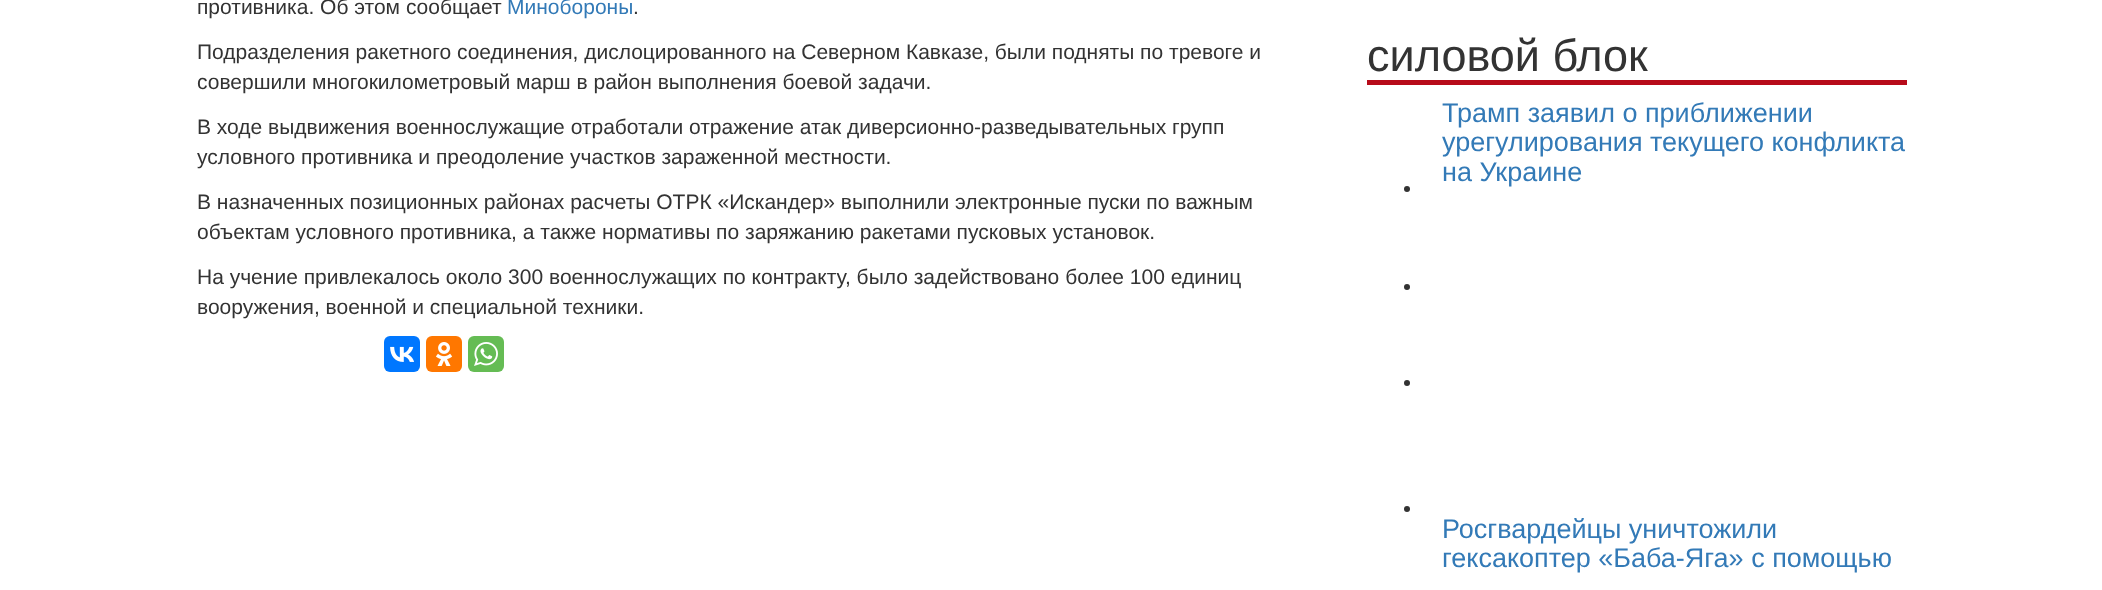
async function draw(canvas) {
	canvas.width = 2102;
	canvas.height = 590;
	const c = canvas.getContext('2d');
	c.miterLimit = 4;
	c.fontKerning = 'normal';
	async function loadImage(src) {
		const img = new Image();
		img.src = src;
		await img.decode();
		return img;
	}

	c.fillStyle = '#fff';
	c.fillRect(0, 0, 2102, 590);
	c.font = '21px Liberation Sans';
	c.fillStyle = '#333';
	c.fillText('противника. Об этом сообщает', 197, 14);
	c.fillStyle = '#337ab7';
	c.fillText('Минобороны', 507, 14);
	c.fillStyle = '#333';
	for (const [text, x, y] of [
		['.', 633, 14],
		['Подразделения ракетного соединения, дислоцированного на Северном Кавказе, были подняты по тревоге и', 197, 59],
		['совершили многокилометровый марш в район выполнения боевой задачи.', 197, 89],
		['В ходе выдвижения военнослужащие отработали отражение атак диверсионно-разведывательных групп', 197, 134],
		['условного противника и преодоление участков зараженной местности.', 197, 164],
		['В назначенных позиционных районах расчеты ОТРК «Искандер» выполнили электронные пуски по важным', 197, 209],
		['объектам условного противника, а также нормативы по заряжанию ракетами пусковых установок.', 197, 239],
		['На учение привлекалось около 300 военнослужащих по контракту, было задействовано более 100 единиц', 197, 284],
		['вооружения, военной и специальной техники.', 197, 314],
	]) {
		c.fillText(text, x, y);
	}
	c.fillStyle = '#07f';
	c.beginPath();
	c.roundRect(384, 336, 36, 36, 6);
	c.fill();
	c.drawImage(await loadImage('img1.png'), 390, 346, 24, 16);
	c.fillStyle = '#f70';
	c.beginPath();
	c.roundRect(426, 336, 36, 36, 6);
	c.fill();
	c.drawImage(await loadImage('img2.png'), 436, 342, 17, 24);
	c.fillStyle = '#65bc54';
	c.beginPath();
	c.roundRect(468, 336, 36, 36, 6);
	c.fill();
	c.drawImage(await loadImage('img3.png'), 474, 342, 24, 24);
	c.fillStyle = '#b70b1a';
	c.fillRect(1367, 80, 540, 5);
	c.font = '45px Liberation Sans';
	c.fillStyle = '#333';
	c.fillText('силовой блок', 1367, 71);
	c.font = '27px Liberation Sans';
	c.fillStyle = '#337ab7';
	for (const [text, x, y] of [
		['Трамп заявил о приближении', 1442, 122],
		['урегулирования текущего конфликта', 1442, 151],
		['на Украине', 1442, 181],
	]) {
		c.fillText(text, x, y);
	}
	c.fillStyle = '#333';
	c.beginPath();
	c.arc(1407, 189, 3, 0, 2 * Math.PI);
	c.fill();
	c.beginPath();
	c.arc(1407, 287, 3, 0, 2 * Math.PI);
	c.fill();
	c.beginPath();
	c.arc(1407, 383, 3, 0, 2 * Math.PI);
	c.fill();
	c.beginPath();
	c.arc(1407, 509, 3, 0, 2 * Math.PI);
	c.fill();
	c.fillStyle = '#337ab7';
	c.fillText('Росгвардейцы уничтожили', 1442, 538);
	c.fillText('гексакоптер «Баба-Яга» с помощью', 1442, 567);
}

draw(document.querySelector('canvas'));
